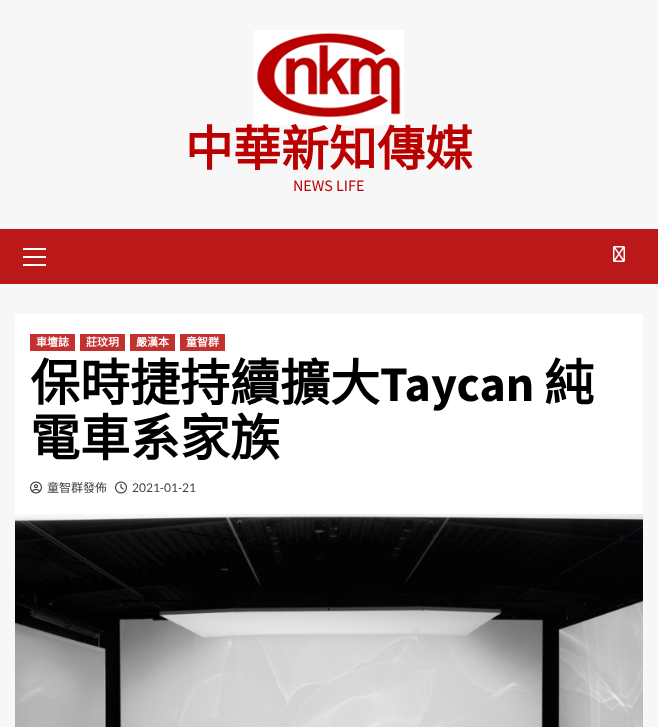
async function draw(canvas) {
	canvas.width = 658;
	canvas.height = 727;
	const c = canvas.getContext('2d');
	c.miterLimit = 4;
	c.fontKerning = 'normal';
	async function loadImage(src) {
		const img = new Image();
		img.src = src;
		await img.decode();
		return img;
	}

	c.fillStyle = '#f7f7f7';
	c.fillRect(0, 0, 658, 727);
	c.drawImage(await loadImage('img1.png'), 254, 30, 150, 95);
	c.font = 'bold 48px Noto Sans CJK TC';
	c.fillStyle = '#ba0000';
	c.fillText('中華新知傳媒', 185, 166);
	c.font = '16px Source Sans Pro';
	c.fillText('NEWS LIFE', 293, 191);
	for (const [x, y, w, h, color] of [
		[0, 229, 658, 55, '#bb1919'],
		[23, 256, 23, 2, '#fff'],
		[23, 248, 23, 2, '#fff'],
		[23, 264, 23, 2, '#fff'],
	]) {
		c.fillStyle = color;
		c.fillRect(x, y, w, h);
	}
	c.drawImage(await loadImage('img2.png'), 613, 246, 12, 16);
	c.fillRect(15, 314, 628, 200);
	c.fillStyle = '#c23030';
	c.fillRect(30, 334, 45, 17);
	c.font = 'bold 11px Noto Sans CJK TC';
	c.fillStyle = '#fff';
	c.fillText('車壇誌', 36, 346);
	c.fillStyle = '#c23030';
	c.fillRect(80, 334, 45, 17);
	c.fillStyle = '#fff';
	c.fillText('莊玟玥', 86, 346);
	c.fillStyle = '#c23030';
	c.fillRect(130, 334, 45, 17);
	c.fillStyle = '#fff';
	c.fillText('嚴漢本', 136, 346);
	c.fillStyle = '#c23030';
	c.fillRect(180, 334, 45, 17);
	c.fillStyle = '#fff';
	c.fillText('童智群', 186, 346);
	c.font = 'bold 50px Noto Sans CJK TC';
	c.fillStyle = '#000';
	c.fillText('保時捷持續擴大', 30, 401);
	c.font = 'bold 50px Source Sans Pro';
	c.fillText('Taycan', 380, 401);
	c.font = 'bold 50px Noto Sans CJK TC';
	c.fillText('純', 544, 401);
	c.fillText('電車系家族', 30, 456);
	c.drawImage(await loadImage('img3.png'), 30, 481, 12, 13);
	c.font = '12px Noto Sans CJK TC';
	c.fillStyle = '#404040';
	c.fillText('童智群發佈', 47, 492);
	c.drawImage(await loadImage('img4.png'), 115, 481, 12, 13);
	c.font = '12px Lato';
	c.fillText('2021-01-21', 132, 492);
	c.drawImage(await loadImage('img5.png'), 15, 514, 628, 213);
}

draw(document.querySelector('canvas'));
